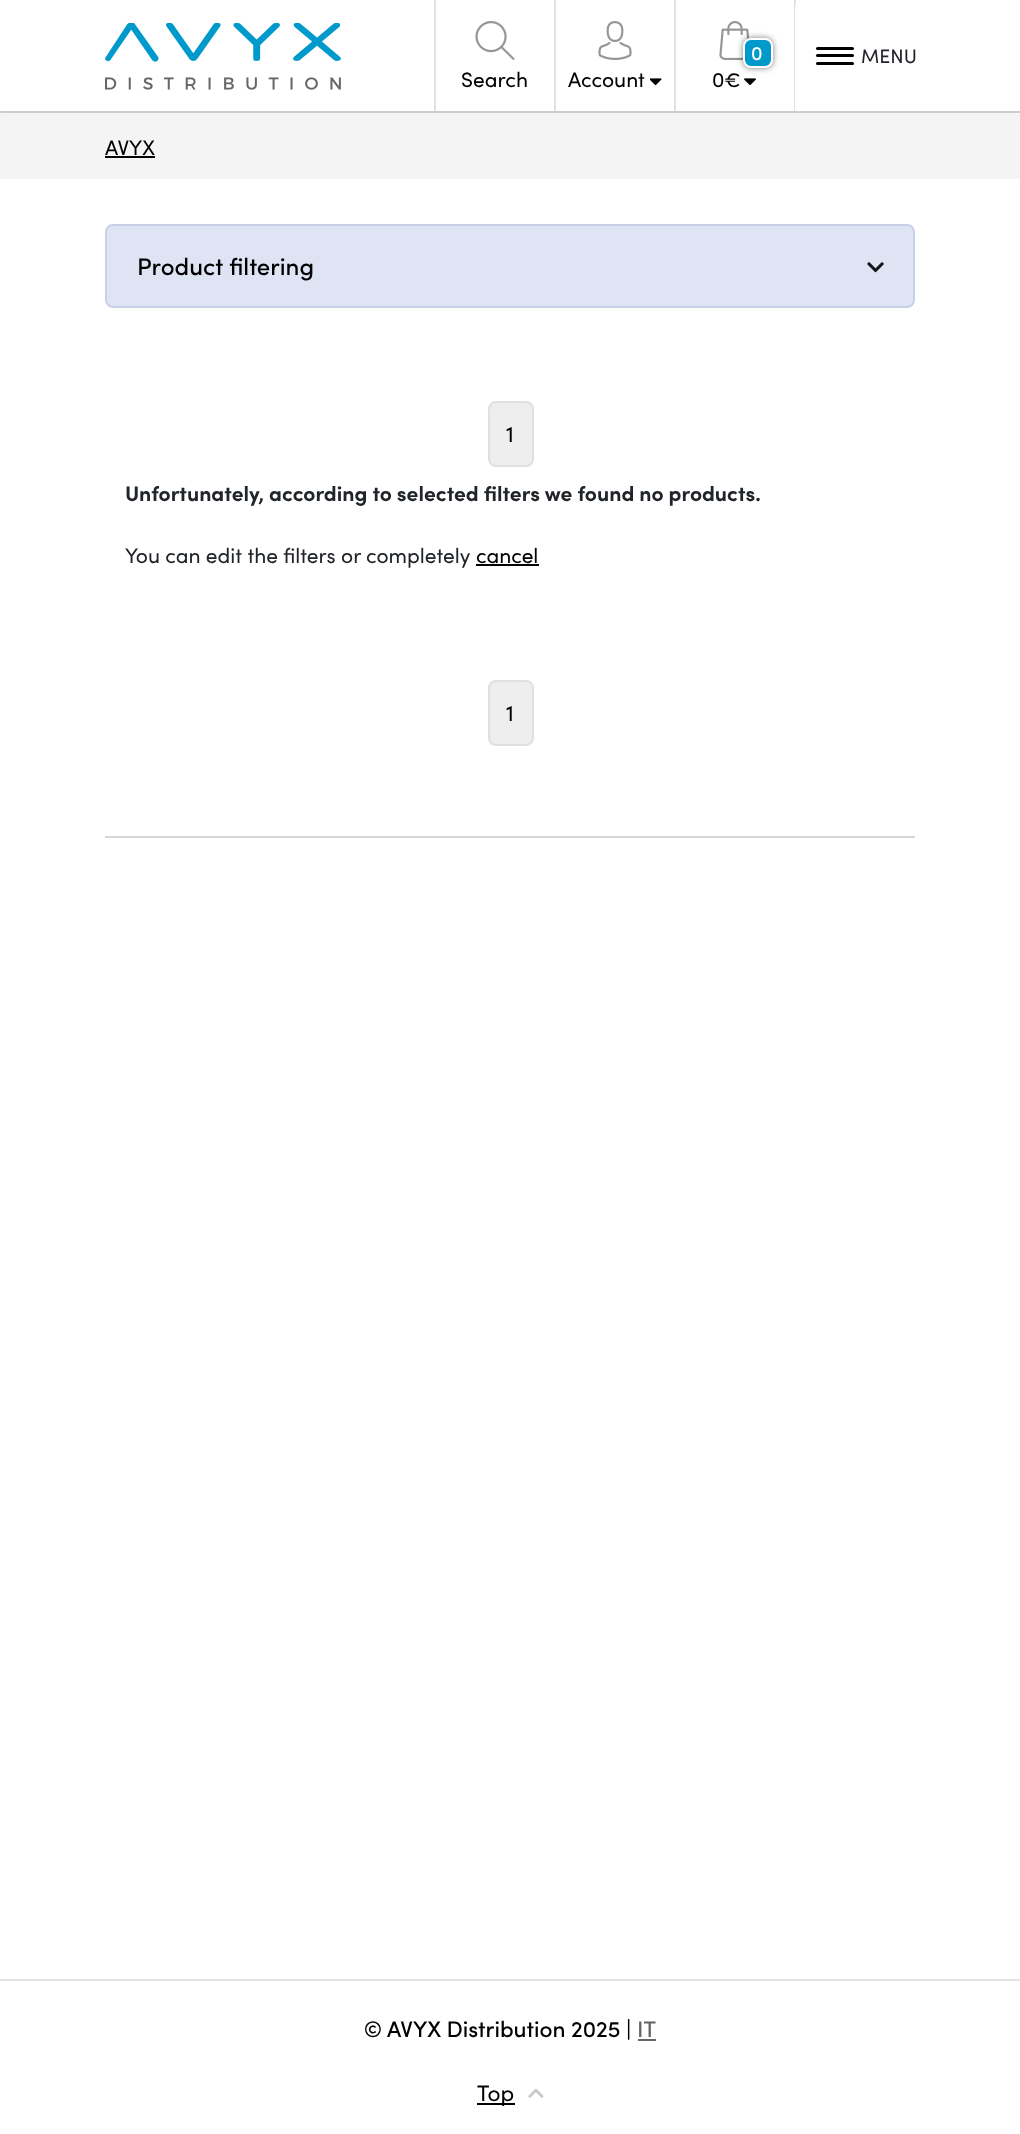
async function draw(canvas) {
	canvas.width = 1020;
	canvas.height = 2134;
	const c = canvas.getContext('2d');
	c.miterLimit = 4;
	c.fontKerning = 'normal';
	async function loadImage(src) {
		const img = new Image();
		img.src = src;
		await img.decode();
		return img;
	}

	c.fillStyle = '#fff';
	c.fillRect(0, 0, 1020, 2134);
	c.fillStyle = '#e3e3e3e6';
	c.filter = 'blur(10.5px)';
	c.beginPath();
	c.rect(0, 0, 1020, 113);
	c.fill();
	c.filter = 'none';
	c.fillStyle = '#fff';
	c.fillRect(0, 0, 1020, 111);
	c.fillStyle = '#cdcdcd';
	c.fillRect(0, 111, 1020, 2);
	c.drawImage(await loadImage('img1.png'), 105, 23, 236, 67);
	c.fillStyle = '#e1e1e1';
	c.fillRect(434, 0, 2, 111);
	c.fillRect(794, 0, 2, 111);
	c.drawImage(await loadImage('img2.png'), 719, 21, 31, 39);
	c.fillStyle = '#00000080';
	c.filter = 'blur(3px)';
	c.beginPath();
	c.roundRect(743, 38, 30, 30, 8);
	c.fill();
	c.filter = 'none';
	c.fillStyle = '#09c';
	c.beginPath();
	c.roundRect(744, 39, 28, 28, 7);
	c.fill();
	c.strokeStyle = '#fff';
	c.lineWidth = 2;
	c.stroke();
	c.font = '500 19.5px Sofia';
	c.fillStyle = '#fff';
	c.fillText('0', 751, 60);
	c.font = '21px Sofia';
	c.fillStyle = '#000';
	c.fillText('0€', 712, 87);
	c.drawImage(await loadImage('img3.png'), 744, 78, 12, 7);
	c.fillStyle = '#fff';
	c.beginPath();
	c.roundRect(795, 0, 120, 111, [8, 8, 0, 0]);
	c.fill();
	c.fillStyle = '#000';
	c.beginPath();
	c.roundRect(816, 62, 38, 3, 1.5);
	c.fill();
	c.beginPath();
	c.roundRect(816, 47, 38, 3, 1.5);
	c.fill();
	c.beginPath();
	c.roundRect(816, 54, 38, 3, 1.5);
	c.fill();
	c.font = '19.5px Sofia';
	c.fillStyle = '#212529';
	c.fillText('MENU', 861, 63);
	c.fillStyle = '#e1e1e1';
	c.fillRect(554, 0, 2, 111);
	c.drawImage(await loadImage('img4.png'), 475, 21, 40, 39);
	c.font = '21px Sofia';
	c.fillStyle = '#000';
	c.fillText('Search', 461, 87);
	c.fillStyle = '#e1e1e1';
	c.fillRect(674, 0, 2, 111);
	c.drawImage(await loadImage('img5.png'), 598, 21, 34, 39);
	c.fillStyle = '#000';
	c.fillText('Account', 568, 87);
	c.drawImage(await loadImage('img6.png'), 650, 78, 12, 8);
	c.fillStyle = '#f4f4f4';
	c.fillRect(0, 114, 1020, 65);
	c.fillStyle = '#000';
	c.fillText('AVYX', 105, 155);
	c.fillRect(105, 156, 50, 2);
	c.fillStyle = '#dee4f4';
	c.beginPath();
	c.roundRect(106, 225, 808, 82, 7);
	c.fill();
	c.strokeStyle = '#c7d0e7';
	c.stroke();
	c.font = '500 24px Sofia';
	c.fillStyle = '#000';
	c.fillText('Product filtering', 137, 275);
	c.drawImage(await loadImage('img7.png'), 867, 262, 17, 11);
	c.fillStyle = '#eee';
	c.beginPath();
	c.roundRect(489, 402, 44, 64, 7);
	c.fill();
	c.strokeStyle = '#e0e0e0';
	c.stroke();
	c.font = '22.5px Sofia';
	c.fillStyle = '#000';
	c.fillText('1', 506, 442);
	c.font = 'bold 21px Sofia';
	c.fillStyle = '#212529';
	c.fillText('Unfortunately, according to selected filters we found no products.', 125, 501);
	c.font = '21px Sofia';
	c.fillText('You can edit the filters or completely', 125, 563);
	c.fillStyle = '#000';
	c.fillText('cancel', 476, 563);
	c.fillRect(476, 564, 63, 2);
	c.fillStyle = '#eee';
	c.beginPath();
	c.roundRect(489, 681, 44, 64, 7);
	c.fill();
	c.stroke();
	c.font = '22.5px Sofia';
	c.fillStyle = '#000';
	c.fillText('1', 506, 721);
	c.fillStyle = '#d6d6d6';
	c.fillRect(105, 836, 810, 2);
	c.fillStyle = '#e3e3e3';
	c.fillRect(0, 1979, 1020, 2);
	c.font = '500 22.5px Sofia';
	c.fillStyle = '#000';
	c.fillText('© AVYX Distribution 2025 |', 364, 2037);
	c.fillStyle = '#656565';
	c.fillText('IT', 637, 2037);
	c.fillRect(638, 2039, 18, 2);
	c.fillStyle = '#000';
	c.fillRect(477, 2103, 38, 2);
	c.font = '22.5px Sofia';
	c.fillText('Top', 477, 2101);
	c.drawImage(await loadImage('img8.png'), 528, 2088, 16, 10);
}

draw(document.querySelector('canvas'));
